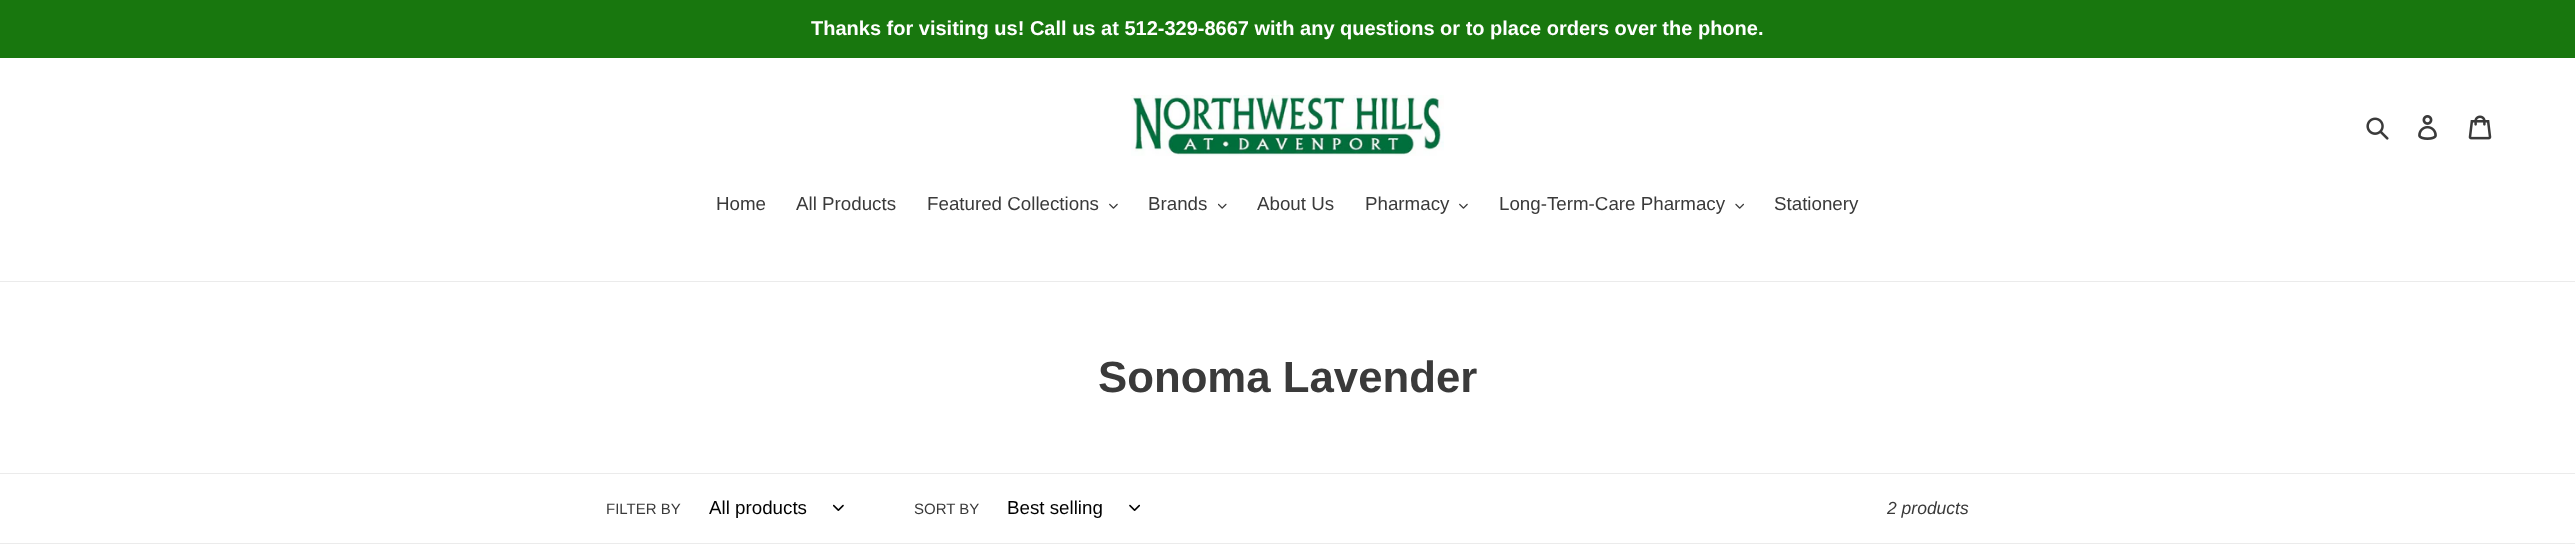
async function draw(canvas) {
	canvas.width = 2575;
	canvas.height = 551;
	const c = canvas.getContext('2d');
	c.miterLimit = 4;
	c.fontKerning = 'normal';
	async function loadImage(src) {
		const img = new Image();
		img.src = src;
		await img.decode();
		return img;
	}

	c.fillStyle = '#fff';
	c.fillRect(0, 0, 2575, 551);
	c.fillStyle = '#18770e';
	c.fillRect(0, 0, 2575, 58);
	c.font = 'bold 20px Liberation Sans';
	c.fillStyle = '#fff';
	c.fillText('Thanks for visiting us! Call us at 512-329-8667 with any questions or to place orders over the phone.', 811, 35);
	c.drawImage(await loadImage('img1.png'), 1131, 95, 313, 61);
	c.drawImage(await loadImage('img2.png'), 2366, 117, 23, 23);
	c.drawImage(await loadImage('img3.png'), 2418, 115, 19, 25);
	c.drawImage(await loadImage('img4.png'), 2468, 115, 24, 25);
	c.fillStyle = '#ebebeb';
	c.fillRect(0, 281, 2575, 1);
	c.font = '18.75px Liberation Sans';
	c.fillStyle = '#3a3a3a';
	for (const [text, x, y] of [
		['Home', 716, 210],
		['All Products', 796, 210],
		['Featured Collections', 927, 210],
	]) {
		c.fillText(text, x, y);
	}
	c.drawImage(await loadImage('img5.png'), 1109, 203, 9, 6);
	c.fillText('Brands', 1148, 210);
	c.drawImage(await loadImage('img6.png'), 1218, 203, 9, 6);
	c.fillText('About Us', 1257, 210);
	c.fillText('Pharmacy', 1365, 210);
	c.drawImage(await loadImage('img5.png'), 1459, 203, 9, 6);
	c.fillText('Long-Term-Care Pharmacy', 1499, 210);
	c.drawImage(await loadImage('img7.png'), 1735, 203, 9, 6);
	c.fillText('Stationery', 1774, 210);
	c.font = 'bold 43.75px Liberation Sans';
	c.fillText('Sonoma Lavender', 1098, 392);
	c.fillStyle = '#ebebeb';
	c.fillRect(0, 473, 2575, 1);
	c.fillRect(0, 543, 2575, 1);
	c.font = '15px Liberation Sans';
	c.fillStyle = '#3a3a3a';
	c.fillText('FILTER BY', 606, 514);
	c.font = '18.75px Liberation Sans';
	c.fillStyle = '#000';
	c.fillText('All products', 709, 514);
	c.drawImage(await loadImage('img8.png'), 833, 504, 11, 7);
	c.font = '15px Liberation Sans';
	c.fillStyle = '#3a3a3a';
	c.fillText('SORT BY', 914, 514);
	c.font = '18.75px Liberation Sans';
	c.fillStyle = '#000';
	c.fillText('Best selling', 1007, 514);
	c.drawImage(await loadImage('img9.png'), 1129, 504, 11, 7);
	c.font = 'italic 17.5px Liberation Sans';
	c.fillStyle = '#3a3a3a';
	c.fillText('2 products', 1887, 514);
}

draw(document.querySelector('canvas'));
